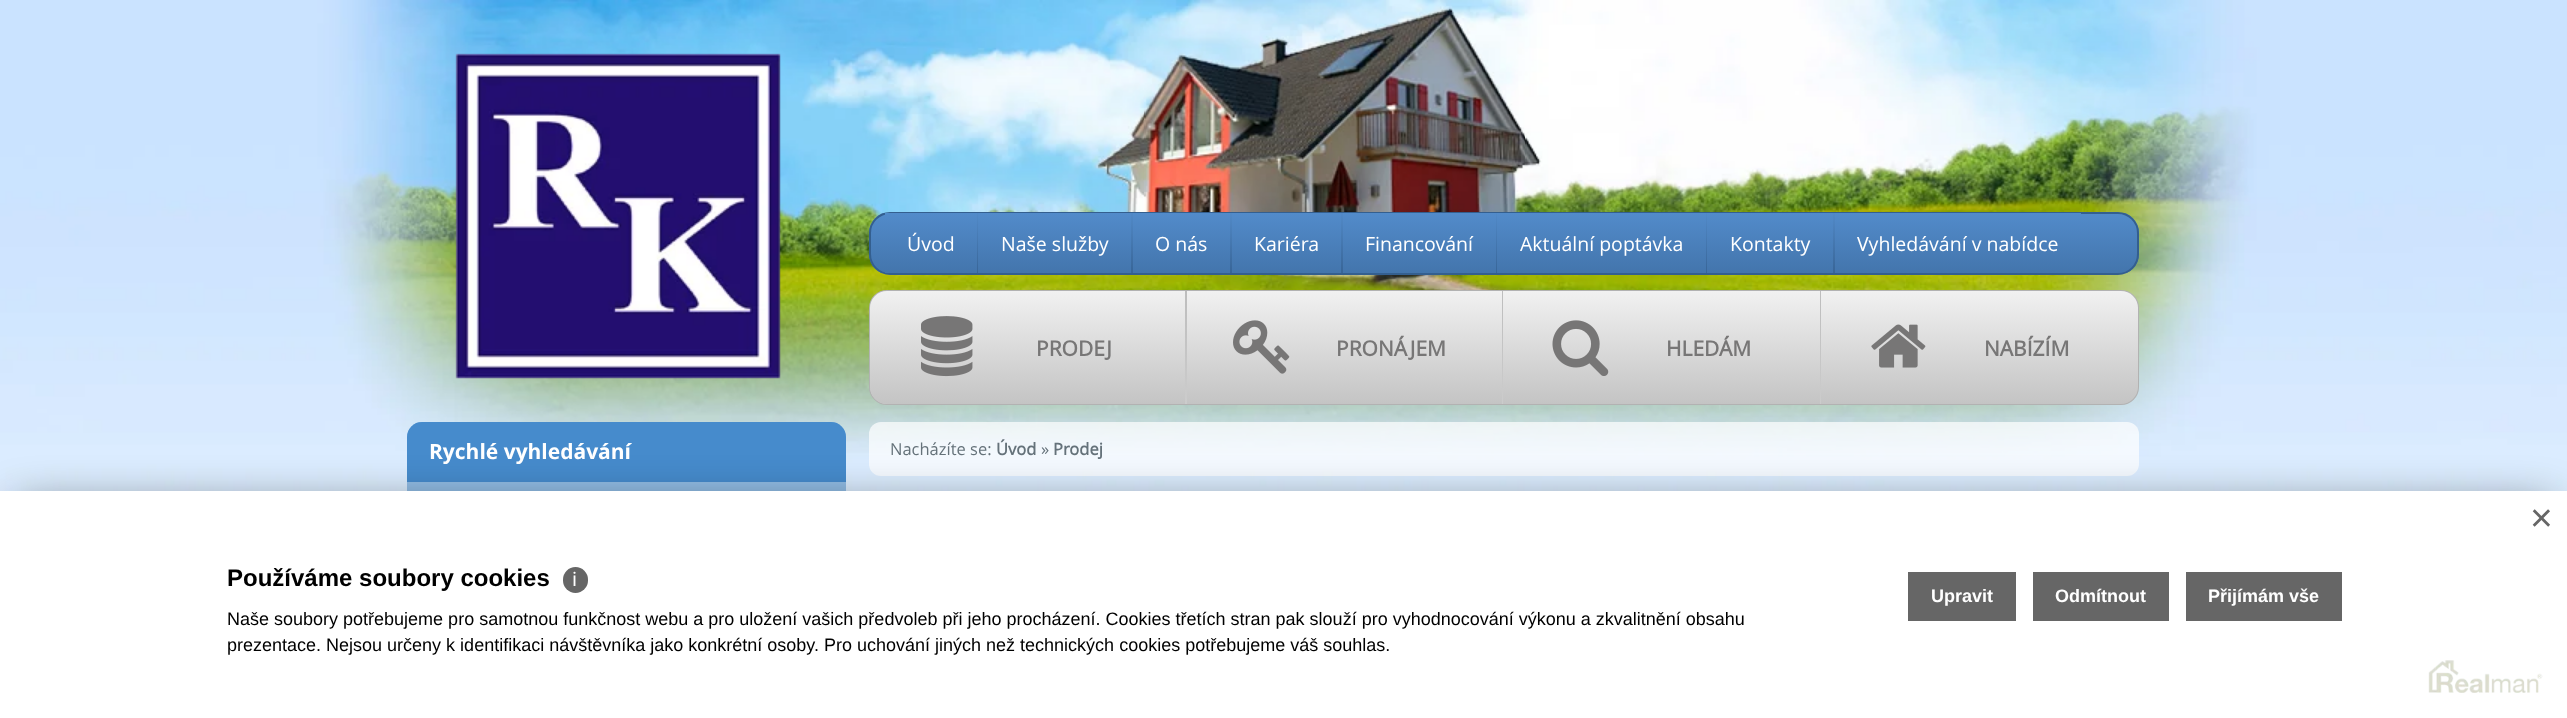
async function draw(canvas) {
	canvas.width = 2567;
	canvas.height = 718;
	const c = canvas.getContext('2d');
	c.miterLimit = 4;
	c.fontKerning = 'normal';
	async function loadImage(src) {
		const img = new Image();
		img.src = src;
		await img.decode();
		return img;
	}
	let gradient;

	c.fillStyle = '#fff';
	c.fillRect(0, 0, 2567, 718);
	c.drawImage(await loadImage('img1.png'), 0, 0, 2567, 491);
	c.drawImage(await loadImage('img2.png'), 455, 53, 326, 326);
	c.save();
	c.beginPath();
	c.roundRect(869, 212, 1270, 63, 21);
	c.clip();
	gradient = c.createLinearGradient(1504, 213, 1504, 273);
	gradient.addColorStop(0, '#528bca');
	gradient.addColorStop(1, '#4375ac');
	c.fillStyle = gradient;
	c.fillRect(869, 213, 1270, 60);
	c.restore();
	c.beginPath();
	c.roundRect(870, 213, 1268, 61, 20);
	c.strokeStyle = '#345f8f';
	c.lineWidth = 2;
	c.stroke();
	gradient = c.createLinearGradient(932, 213, 932, 273);
	gradient.addColorStop(0, '#5189c7');
	gradient.addColorStop(1, '#386597');
	c.fillStyle = gradient;
	c.fillRect(977, 213, 1, 60);
	gradient = c.createLinearGradient(931, 213, 931, 273);
	gradient.addColorStop(0, '#528bca');
	gradient.addColorStop(1, '#4375ac');
	c.fillStyle = gradient;
	c.fillRect(885, 213, 92, 60);
	c.font = '19.5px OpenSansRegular';
	c.fillStyle = '#fff';
	c.fillText('Úvod', 907, 251);
	gradient = c.createLinearGradient(1055, 213, 1055, 273);
	gradient.addColorStop(0, '#5189c7');
	gradient.addColorStop(1, '#386597');
	c.fillStyle = gradient;
	c.fillRect(1131, 213, 2, 60);
	gradient = c.createLinearGradient(1055, 213, 1055, 273);
	gradient.addColorStop(0, '#528bca');
	gradient.addColorStop(1, '#4375ac');
	c.fillStyle = gradient;
	c.fillRect(978, 213, 153, 1);
	c.fillStyle = '#fff';
	c.fillText('Naše služby', 1001, 251);
	gradient = c.createLinearGradient(1182, 213, 1182, 273);
	gradient.addColorStop(0, '#5189c7');
	gradient.addColorStop(1, '#386597');
	c.fillStyle = gradient;
	c.fillRect(1230, 213, 2, 60);
	gradient = c.createLinearGradient(1181, 213, 1181, 273);
	gradient.addColorStop(0, '#528bca');
	gradient.addColorStop(1, '#4375ac');
	c.fillStyle = gradient;
	c.fillRect(1133, 213, 97, 1);
	c.fillStyle = '#fff';
	c.fillText('O nás', 1155, 251);
	gradient = c.createLinearGradient(1287, 213, 1287, 273);
	gradient.addColorStop(0, '#5189c7');
	gradient.addColorStop(1, '#386597');
	c.fillStyle = gradient;
	c.fillRect(1341, 213, 2, 60);
	gradient = c.createLinearGradient(1286, 213, 1286, 273);
	gradient.addColorStop(0, '#528bca');
	gradient.addColorStop(1, '#4375ac');
	c.fillStyle = gradient;
	c.fillRect(1232, 213, 109, 1);
	c.fillStyle = '#fff';
	c.fillText('Kariéra', 1254, 251);
	gradient = c.createLinearGradient(1420, 213, 1420, 273);
	gradient.addColorStop(0, '#5189c7');
	gradient.addColorStop(1, '#386597');
	c.fillStyle = gradient;
	c.fillRect(1496, 213, 1, 60);
	gradient = c.createLinearGradient(1419, 213, 1419, 273);
	gradient.addColorStop(0, '#528bca');
	gradient.addColorStop(1, '#4375ac');
	c.fillStyle = gradient;
	c.fillRect(1343, 213, 153, 1);
	c.fillStyle = '#fff';
	c.fillText('Financování', 1365, 251);
	gradient = c.createLinearGradient(1602, 213, 1602, 273);
	gradient.addColorStop(0, '#5189c7');
	gradient.addColorStop(1, '#386597');
	c.fillStyle = gradient;
	c.fillRect(1706, 213, 1, 60);
	gradient = c.createLinearGradient(1601, 213, 1601, 273);
	gradient.addColorStop(0, '#528bca');
	gradient.addColorStop(1, '#4375ac');
	c.fillStyle = gradient;
	c.fillRect(1497, 213, 209, 1);
	c.fillStyle = '#fff';
	c.fillText('Aktuální poptávka', 1520, 251);
	gradient = c.createLinearGradient(1771, 213, 1771, 273);
	gradient.addColorStop(0, '#5189c7');
	gradient.addColorStop(1, '#386597');
	c.fillStyle = gradient;
	c.fillRect(1833, 213, 2, 60);
	gradient = c.createLinearGradient(1770, 213, 1770, 273);
	gradient.addColorStop(0, '#528bca');
	gradient.addColorStop(1, '#4375ac');
	c.fillStyle = gradient;
	c.fillRect(1707, 213, 126, 1);
	c.fillStyle = '#fff';
	c.fillText('Kontakty', 1730, 251);
	gradient = c.createLinearGradient(1958, 213, 1958, 273);
	gradient.addColorStop(0, '#528bca');
	gradient.addColorStop(1, '#4375ac');
	c.fillStyle = gradient;
	c.fillRect(1835, 213, 246, 1);
	c.fillStyle = '#fff';
	c.fillText('Vyhledávání v nabídce', 1857, 251);
	c.beginPath();
	c.roundRect(870, 291, 1268, 113, 17);
	c.strokeStyle = '#b2b2b2';
	c.stroke();
	gradient = c.createLinearGradient(1028, 291, 1028, 404);
	gradient.addColorStop(0, '#bdbdbd');
	gradient.addColorStop(1, '#ccc');
	c.fillStyle = gradient;
	c.beginPath();
	c.roundRect(870, 291, 317, 113, [17, 0, 0, 17]);
	c.fill();
	gradient = c.createLinearGradient(1028, 291, 1028, 404);
	gradient.addColorStop(0, '#f1f1f1');
	gradient.addColorStop(1, '#c4c4c4');
	c.fillStyle = gradient;
	c.beginPath();
	c.roundRect(870, 291, 315, 113, [17, 0, 0, 17]);
	c.fill();
	c.drawImage(await loadImage('img3.png'), 921, 316, 52, 61);
	c.font = 'bold 21px OpenSansRegular';
	c.fillStyle = '#777676';
	c.fillText('PRODEJ', 1036, 356);
	gradient = c.createLinearGradient(1345, 291, 1345, 404);
	gradient.addColorStop(0, '#bdbdbd');
	gradient.addColorStop(1, '#ccc');
	c.fillStyle = gradient;
	c.fillRect(1502, 291, 1, 113);
	gradient = c.createLinearGradient(1344, 291, 1344, 404);
	gradient.addColorStop(0, '#f1f1f1');
	gradient.addColorStop(1, '#c4c4c4');
	c.fillStyle = gradient;
	c.fillRect(1187, 291, 315, 113);
	c.drawImage(await loadImage('img4.png'), 1233, 320, 57, 54);
	c.fillStyle = '#777676';
	c.fillText('PRONÁJEM', 1336, 356);
	gradient = c.createLinearGradient(1662, 291, 1662, 404);
	gradient.addColorStop(0, '#bdbdbd');
	gradient.addColorStop(1, '#ccc');
	c.fillStyle = gradient;
	c.fillRect(1820, 291, 1, 113);
	gradient = c.createLinearGradient(1661, 291, 1661, 404);
	gradient.addColorStop(0, '#f1f1f1');
	gradient.addColorStop(1, '#c4c4c4');
	c.fillStyle = gradient;
	c.fillRect(1503, 291, 317, 113);
	c.drawImage(await loadImage('img5.png'), 1552, 320, 57, 56);
	c.fillStyle = '#777676';
	c.fillText('HLEDÁM', 1666, 356);
	gradient = c.createLinearGradient(1979, 291, 1979, 404);
	gradient.addColorStop(0, '#f1f1f1');
	gradient.addColorStop(1, '#c4c4c4');
	c.fillStyle = gradient;
	c.beginPath();
	c.roundRect(1821, 291, 317, 113, [0, 17, 17, 0]);
	c.fill();
	c.drawImage(await loadImage('img6.png'), 1871, 324, 55, 44);
	c.fillStyle = '#777676';
	c.fillText('NABÍZÍM', 1984, 356);
	c.fillStyle = '#91bce4';
	c.beginPath();
	c.roundRect(407, 422, 439, 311, 15);
	c.fill();
	c.fillStyle = '#468bcc';
	c.beginPath();
	c.roundRect(407, 422, 439, 60, [15, 15, 0, 0]);
	c.fill();
	c.font = 'bold 21px Open Sans';
	c.fillStyle = '#fff';
	c.fillText('Rychlé vyhledávání', 429, 459);
	c.fillStyle = '#ffffffb3';
	c.beginPath();
	c.roundRect(869, 422, 1270, 54, 12);
	c.fill();
	c.font = '16.5px OpenSansRegular';
	c.fillStyle = '#65727a';
	c.fillText('Nacházíte se:', 890, 455);
	c.font = 'bold 16.5px OpenSansRegular';
	c.fillText('Úvod', 996, 455);
	c.font = '16.5px OpenSansRegular';
	c.fillText('»', 1041, 455);
	c.font = 'bold 16.5px OpenSansRegular';
	c.fillText('Prodej', 1053, 455);
	c.fillStyle = '#00000080';
	c.filter = 'blur(22.5px)';
	c.beginPath();
	c.rect(15, 506, 2538, 198);
	c.fill();
	c.filter = 'none';
	c.fillStyle = '#fff';
	c.fillRect(0, 491, 2567, 227);
	c.drawImage(await loadImage('img7.png'), 2428, 660, 115, 33);
	c.font = '39px Liberation Sans';
	c.fillStyle = '#666';
	c.fillText('×', 2530, 531);
	c.font = 'bold 24px Liberation Sans';
	c.fillStyle = '#000';
	c.fillText('Používáme soubory cookies', 227, 586);
	c.fillStyle = '#666';
	c.beginPath();
	c.roundRect(563, 567, 25, 26, 12.5);
	c.fill();
	c.font = '19.5px Noto Sans';
	c.fillStyle = '#fff';
	c.fillText('ℹ', 572, 586);
	c.font = '18px Liberation Sans';
	c.fillStyle = '#000';
	c.fillText('Naše soubory potřebujeme pro samotnou funkčnost webu a pro uložení vašich předvoleb při jeho procházení. Cookies třetích stran pak slouží pro vyhodnocování výkonu a zkvalitnění obsahu', 227, 625);
	c.fillText('prezentace. Nejsou určeny k identifikaci návštěvníka jako konkrétní osoby. Pro uchování jiných než technických cookies potřebujeme váš souhlas.', 227, 651);
	c.fillStyle = '#666';
	c.fillRect(1908, 572, 108, 49);
	c.font = 'bold 18px Liberation Sans';
	c.fillStyle = '#fff';
	c.fillText('Upravit', 1931, 602);
	c.fillStyle = '#666';
	c.fillRect(2033, 572, 136, 49);
	c.fillStyle = '#fff';
	c.fillText('Odmítnout', 2055, 602);
	c.fillStyle = '#666';
	c.fillRect(2186, 572, 156, 49);
	c.fillStyle = '#fff';
	c.fillText('Přijímám vše', 2208, 602);
}

draw(document.querySelector('canvas'));
